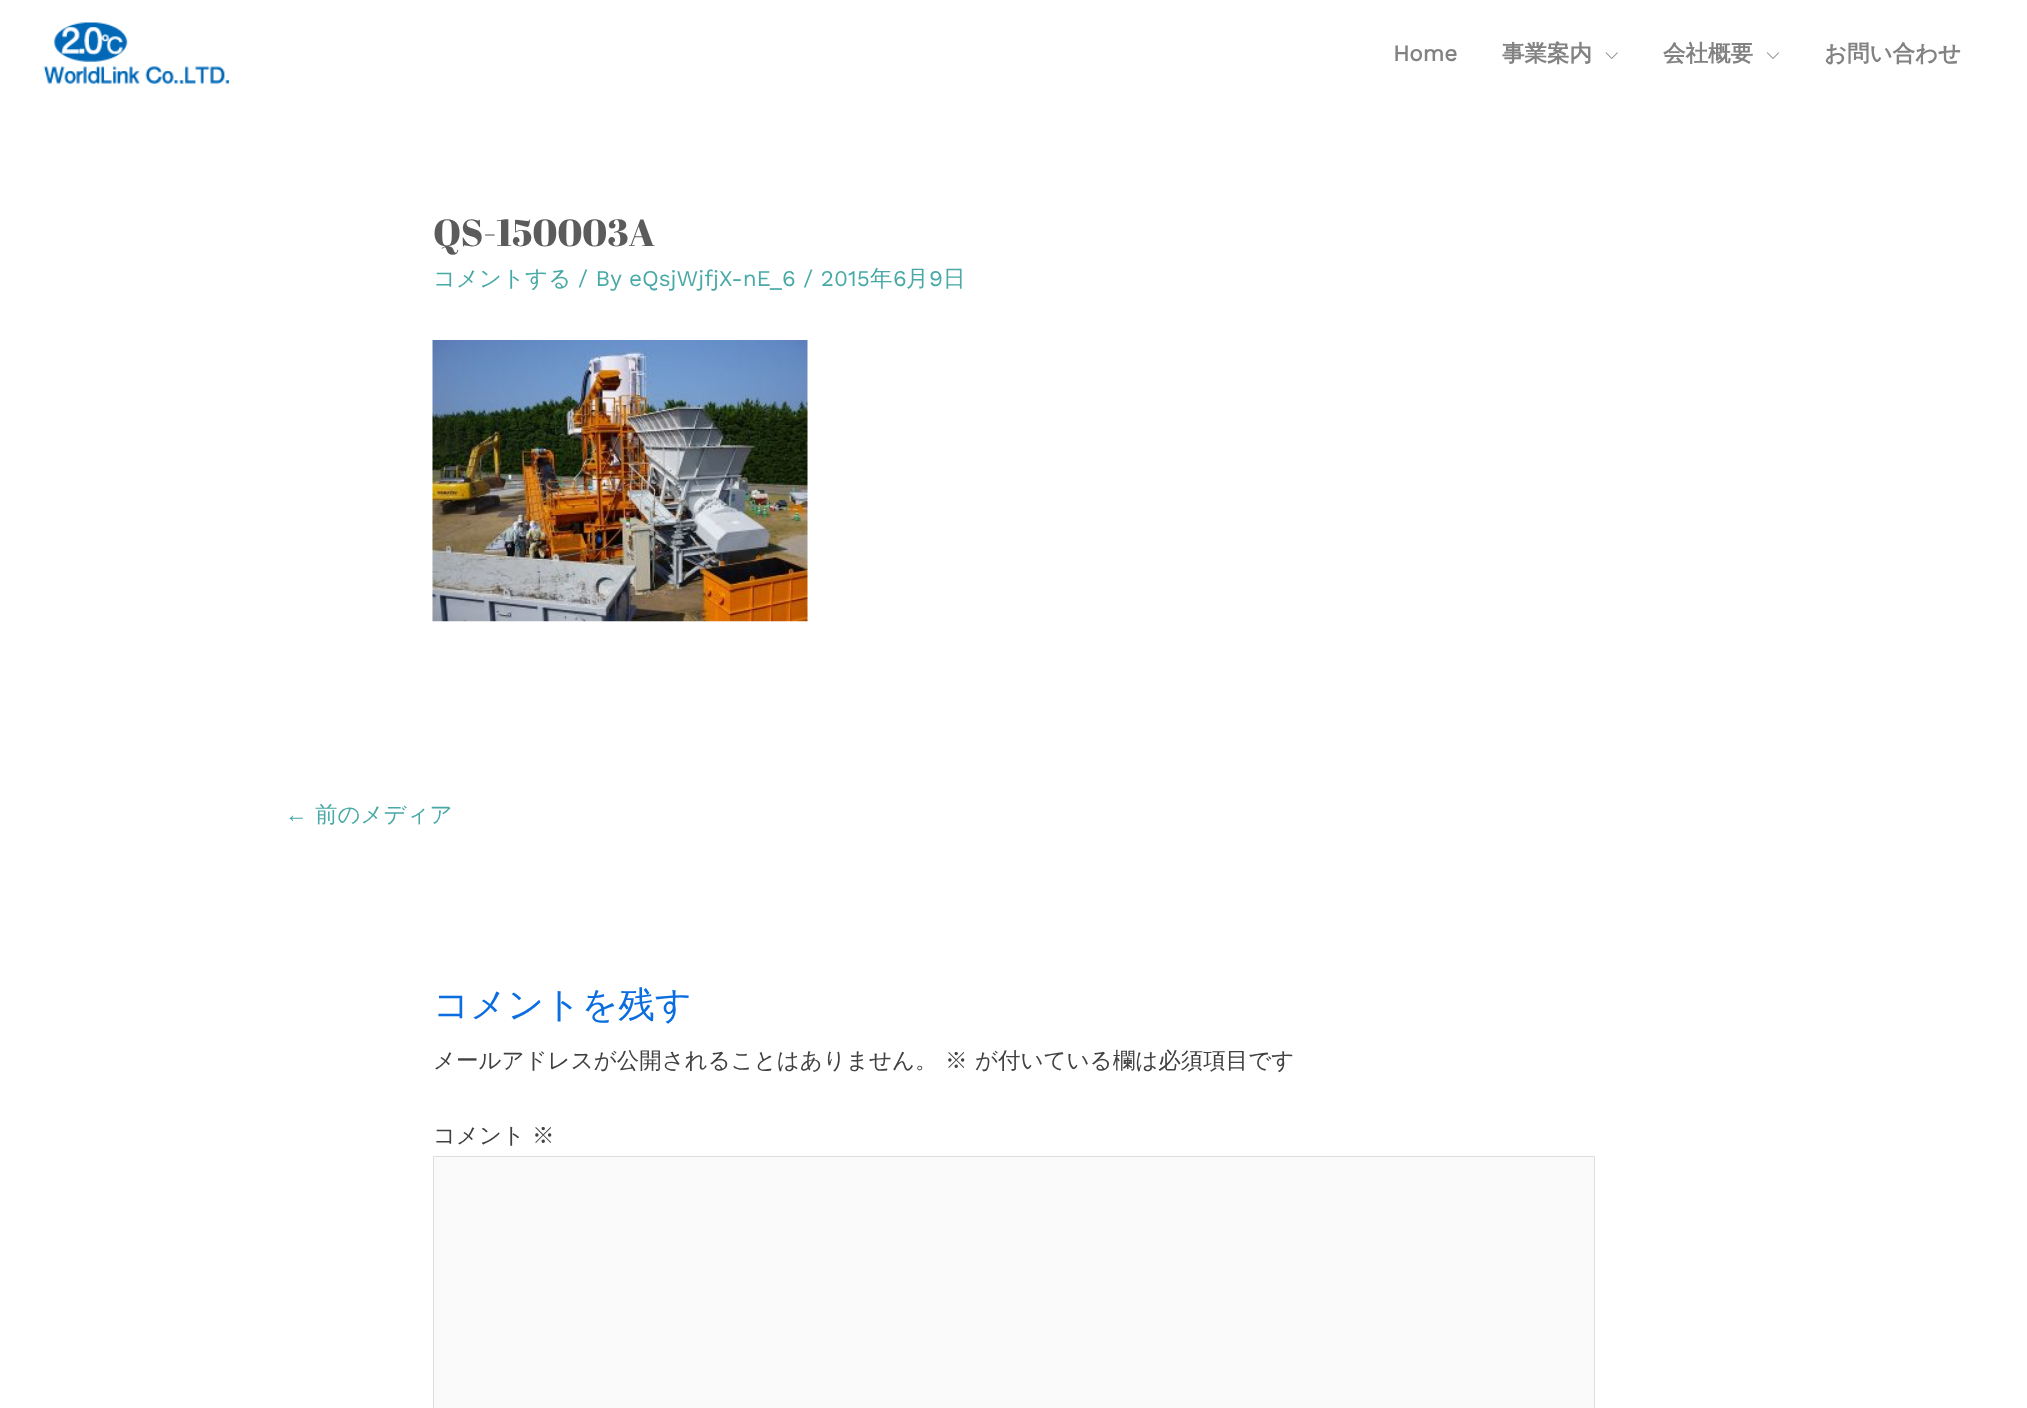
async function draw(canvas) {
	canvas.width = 2027;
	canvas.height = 1408;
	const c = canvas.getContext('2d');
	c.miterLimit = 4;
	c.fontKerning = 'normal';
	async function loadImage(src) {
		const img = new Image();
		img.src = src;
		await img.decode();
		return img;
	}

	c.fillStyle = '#fff';
	c.fillRect(0, 0, 2027, 1408);
	c.drawImage(await loadImage('img1.png'), 43, 22, 187, 62);
	c.font = 'bold 22.5px Work Sans';
	c.fillStyle = '#828282';
	c.fillText('Home', 1393, 61);
	c.font = 'bold 22.5px WenQuanYi Zen Hei';
	c.fillText('事業案内', 1502, 61);
	c.drawImage(await loadImage('img2.png'), 1605, 52, 13, 7);
	c.fillText('会社概要', 1663, 61);
	c.drawImage(await loadImage('img3.png'), 1767, 52, 12, 7);
	c.fillText('お問い合わせ', 1824, 61);
	c.font = '37.5px Abril Fatface';
	c.fillStyle = '#5b5b5b';
	c.fillText('QS-150003A', 433, 246);
	c.font = '500 22.5px WenQuanYi Zen Hei';
	c.fillStyle = '#48a9a6';
	c.fillText('コメントする', 433, 286);
	c.font = '22.5px Work Sans';
	c.fillText('/ By eQsjWjfjX-nE_6 / 2015', 578, 286);
	c.font = '500 22.5px WenQuanYi Zen Hei';
	c.fillText('年', 870, 286);
	c.font = '22.5px Work Sans';
	c.fillText('6', 893, 286);
	c.font = '500 22.5px WenQuanYi Zen Hei';
	c.fillText('月', 906, 286);
	c.font = '22.5px Work Sans';
	c.fillText('9', 929, 286);
	c.font = '500 22.5px WenQuanYi Zen Hei';
	c.fillText('日', 943, 286);
	c.drawImage(await loadImage('img4.png'), 432, 340, 376, 282);
	c.font = '22.5px Liberation Sans';
	c.fillText('←', 285, 822);
	c.font = '500 22.5px WenQuanYi Zen Hei';
	c.fillText('前のメディア', 315, 822);
	c.font = '500 36.25px WenQuanYi Zen Hei';
	c.fillStyle = '#0b6ee0';
	c.fillText('コメントを残す', 433, 1017);
	c.font = '500 22.5px WenQuanYi Zen Hei';
	c.fillStyle = '#414042';
	for (const [text, x, y] of [
		['メールアドレスが公開されることはありません。', 433, 1068],
		['※', 945, 1068],
		['が付いている欄は必須項目です', 975, 1068],
		['コメント', 433, 1143],
		['※', 532, 1143],
	]) {
		c.fillText(text, x, y);
	}
	c.fillStyle = '#fafafa';
	c.beginPath();
	c.rect(433.5, 1156.5, 1161, 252);
	c.fill();
	c.strokeStyle = '#ddd';
	c.stroke();
}

draw(document.querySelector('canvas'));
